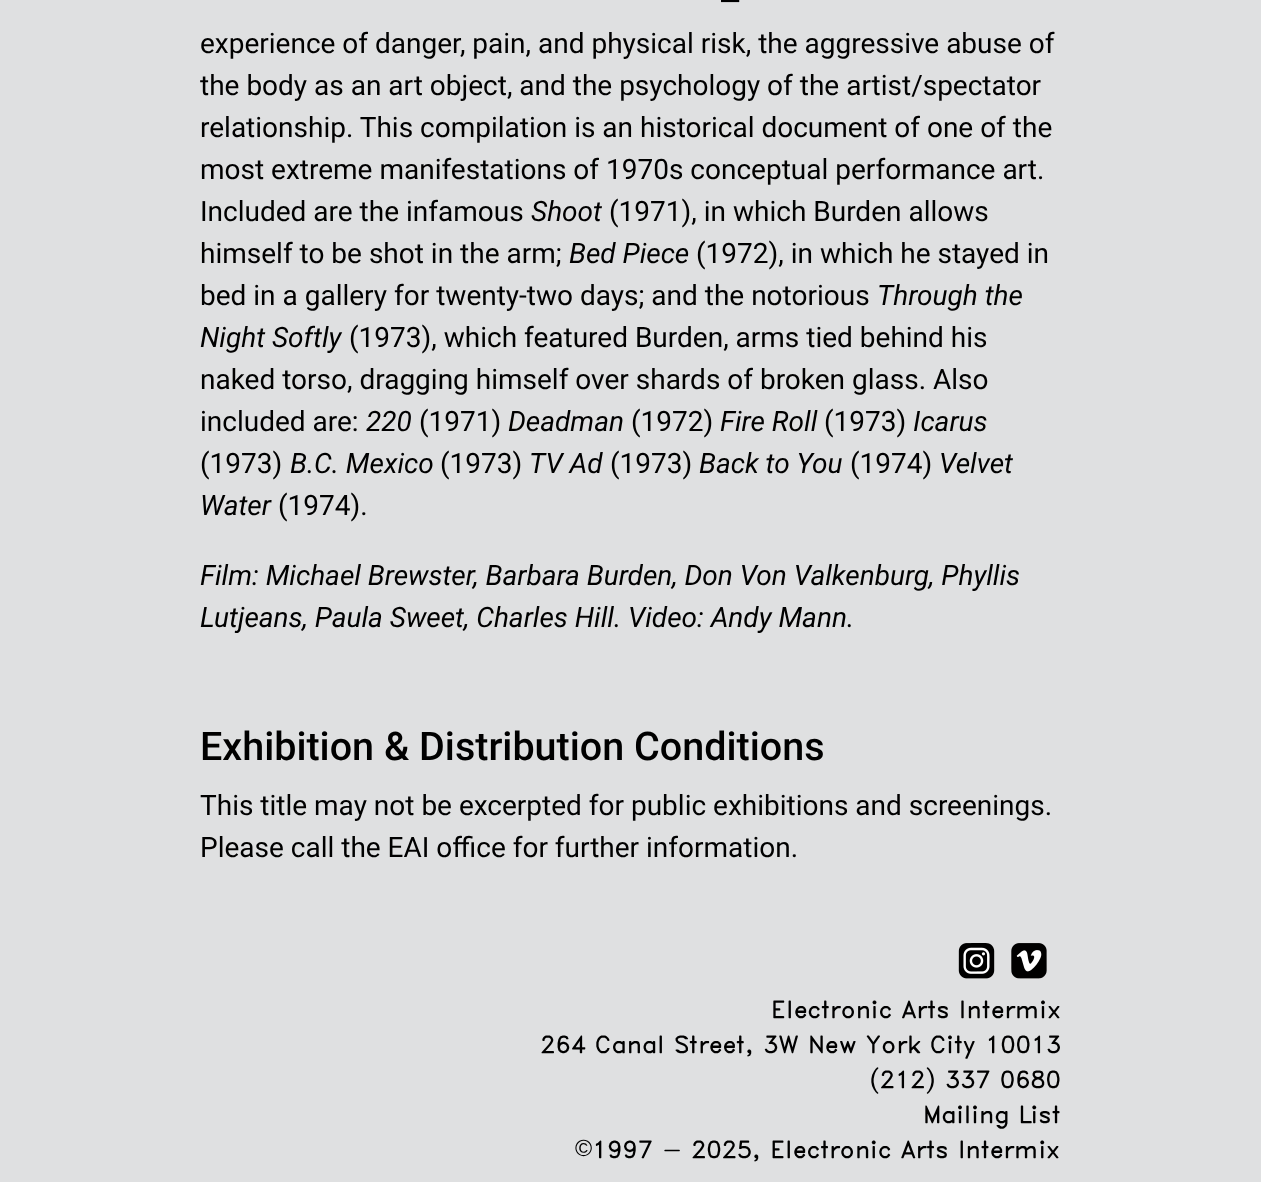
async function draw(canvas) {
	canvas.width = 1261;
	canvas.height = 1182;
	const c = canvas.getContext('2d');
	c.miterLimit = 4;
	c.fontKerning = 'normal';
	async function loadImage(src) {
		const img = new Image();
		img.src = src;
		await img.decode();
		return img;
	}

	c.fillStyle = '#dfe0e1';
	c.fillRect(0, 0, 1261, 1182);
	c.font = '28px Roboto';
	c.fillStyle = '#000';
	for (const [text, x, y] of [
		['—', 719, 11],
		['experience of danger, pain, and physical risk, the aggressive abuse of', 200, 53],
		['the body as an art object, and the psychology of the artist/spectator', 200, 95],
		['relationship. This compilation is an historical document of one of the', 200, 137],
		['most extreme manifestations of 1970s conceptual performance art.', 200, 179],
		['Included are the infamous', 200, 221],
	]) {
		c.fillText(text, x, y);
	}
	c.font = 'italic 28px Roboto';
	c.fillText('Shoot', 531, 221);
	c.font = '28px Roboto';
	c.fillText('(1971), in which Burden allows', 609, 221);
	c.fillText('himself to be shot in the arm;', 200, 263);
	c.font = 'italic 28px Roboto';
	c.fillText('Bed Piece', 569, 263);
	c.font = '28px Roboto';
	c.fillText('(1972), in which he stayed in', 696, 263);
	c.fillText('bed in a gallery for twenty-two days; and the notorious', 200, 305);
	c.font = 'italic 28px Roboto';
	c.fillText('Through the', 877, 305);
	c.fillText('Night Softly', 200, 347);
	c.font = '28px Roboto';
	for (const [text, x, y] of [
		['(1973), which featured Burden, arms tied behind his', 349, 347],
		['naked torso, dragging himself over shards of broken glass. Also', 200, 389],
		['included are:', 200, 431],
	]) {
		c.fillText(text, x, y);
	}
	c.font = 'italic 28px Roboto';
	c.fillText('220', 366, 431);
	c.font = '28px Roboto';
	c.fillText('(1971)', 419, 431);
	c.font = 'italic 28px Roboto';
	c.fillText('Deadman', 508, 431);
	c.font = '28px Roboto';
	c.fillText('(1972)', 631, 431);
	c.font = 'italic 28px Roboto';
	c.fillText('Fire Roll', 720, 431);
	c.font = '28px Roboto';
	c.fillText('(1973)', 824, 431);
	c.font = 'italic 28px Roboto';
	c.fillText('Icarus', 913, 431);
	c.font = '28px Roboto';
	c.fillText('(1973)', 200, 473);
	c.font = 'italic 28px Roboto';
	c.fillText('B.C. Mexico', 290, 473);
	c.font = '28px Roboto';
	c.fillText('(1973)', 440, 473);
	c.font = 'italic 28px Roboto';
	c.fillText('TV Ad', 529, 473);
	c.font = '28px Roboto';
	c.fillText('(1973)', 610, 473);
	c.font = 'italic 28px Roboto';
	c.fillText('Back to You', 699, 473);
	c.font = '28px Roboto';
	c.fillText('(1974)', 850, 473);
	c.font = 'italic 28px Roboto';
	c.fillText('Velvet', 939, 473);
	c.fillText('Water', 200, 515);
	c.font = '28px Roboto';
	c.fillText('(1974).', 278, 515);
	c.font = 'italic 28px Roboto';
	c.fillText('Film: Michael Brewster, Barbara Burden, Don Von Valkenburg, Phyllis', 200, 585);
	c.fillText('Lutjeans, Paula Sweet, Charles Hill. Video: Andy Mann.', 200, 627);
	c.font = '500 39.5px Roboto';
	c.fillText('Exhibition & Distribution Conditions', 200, 760);
	c.font = '28px Roboto';
	c.fillText('This title may not be excerpted for public exhibitions and screenings.', 200, 815);
	c.fillText('Please call the EAI office for further information.', 200, 857);
	c.drawImage(await loadImage('img1.png'), 958, 943, 37, 36);
	c.drawImage(await loadImage('img2.png'), 1011, 943, 36, 36);
	c.letterSpacing = '-0.3px';
	c.wordSpacing = '-3px';
	c.font = '23.3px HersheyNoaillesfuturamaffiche';
	for (const [text, x, y] of [
		['Electronic Arts Intermix', 771, 1016],
		['264 Canal Street, 3W', 540, 1051],
		['New York City', 808, 1051],
	]) {
		c.fillText(text, x, y);
	}
	c.wordSpacing = '0px';
	c.fillText('10013', 985, 1051);
	c.wordSpacing = '-3px';
	c.fillText('(212) 337 0680', 869, 1086);
	c.fillText('Mailing List', 923, 1121);
	c.wordSpacing = '0px';
	c.font = '23.3px Liberation Sans';
	c.fillText('©', 575, 1156);
	c.wordSpacing = '-3px';
	c.font = '23.3px HersheyNoaillesfuturamaffiche';
	c.fillText('1997 - 2025, Electronic Arts Intermix', 592, 1156);
}

draw(document.querySelector('canvas'));
